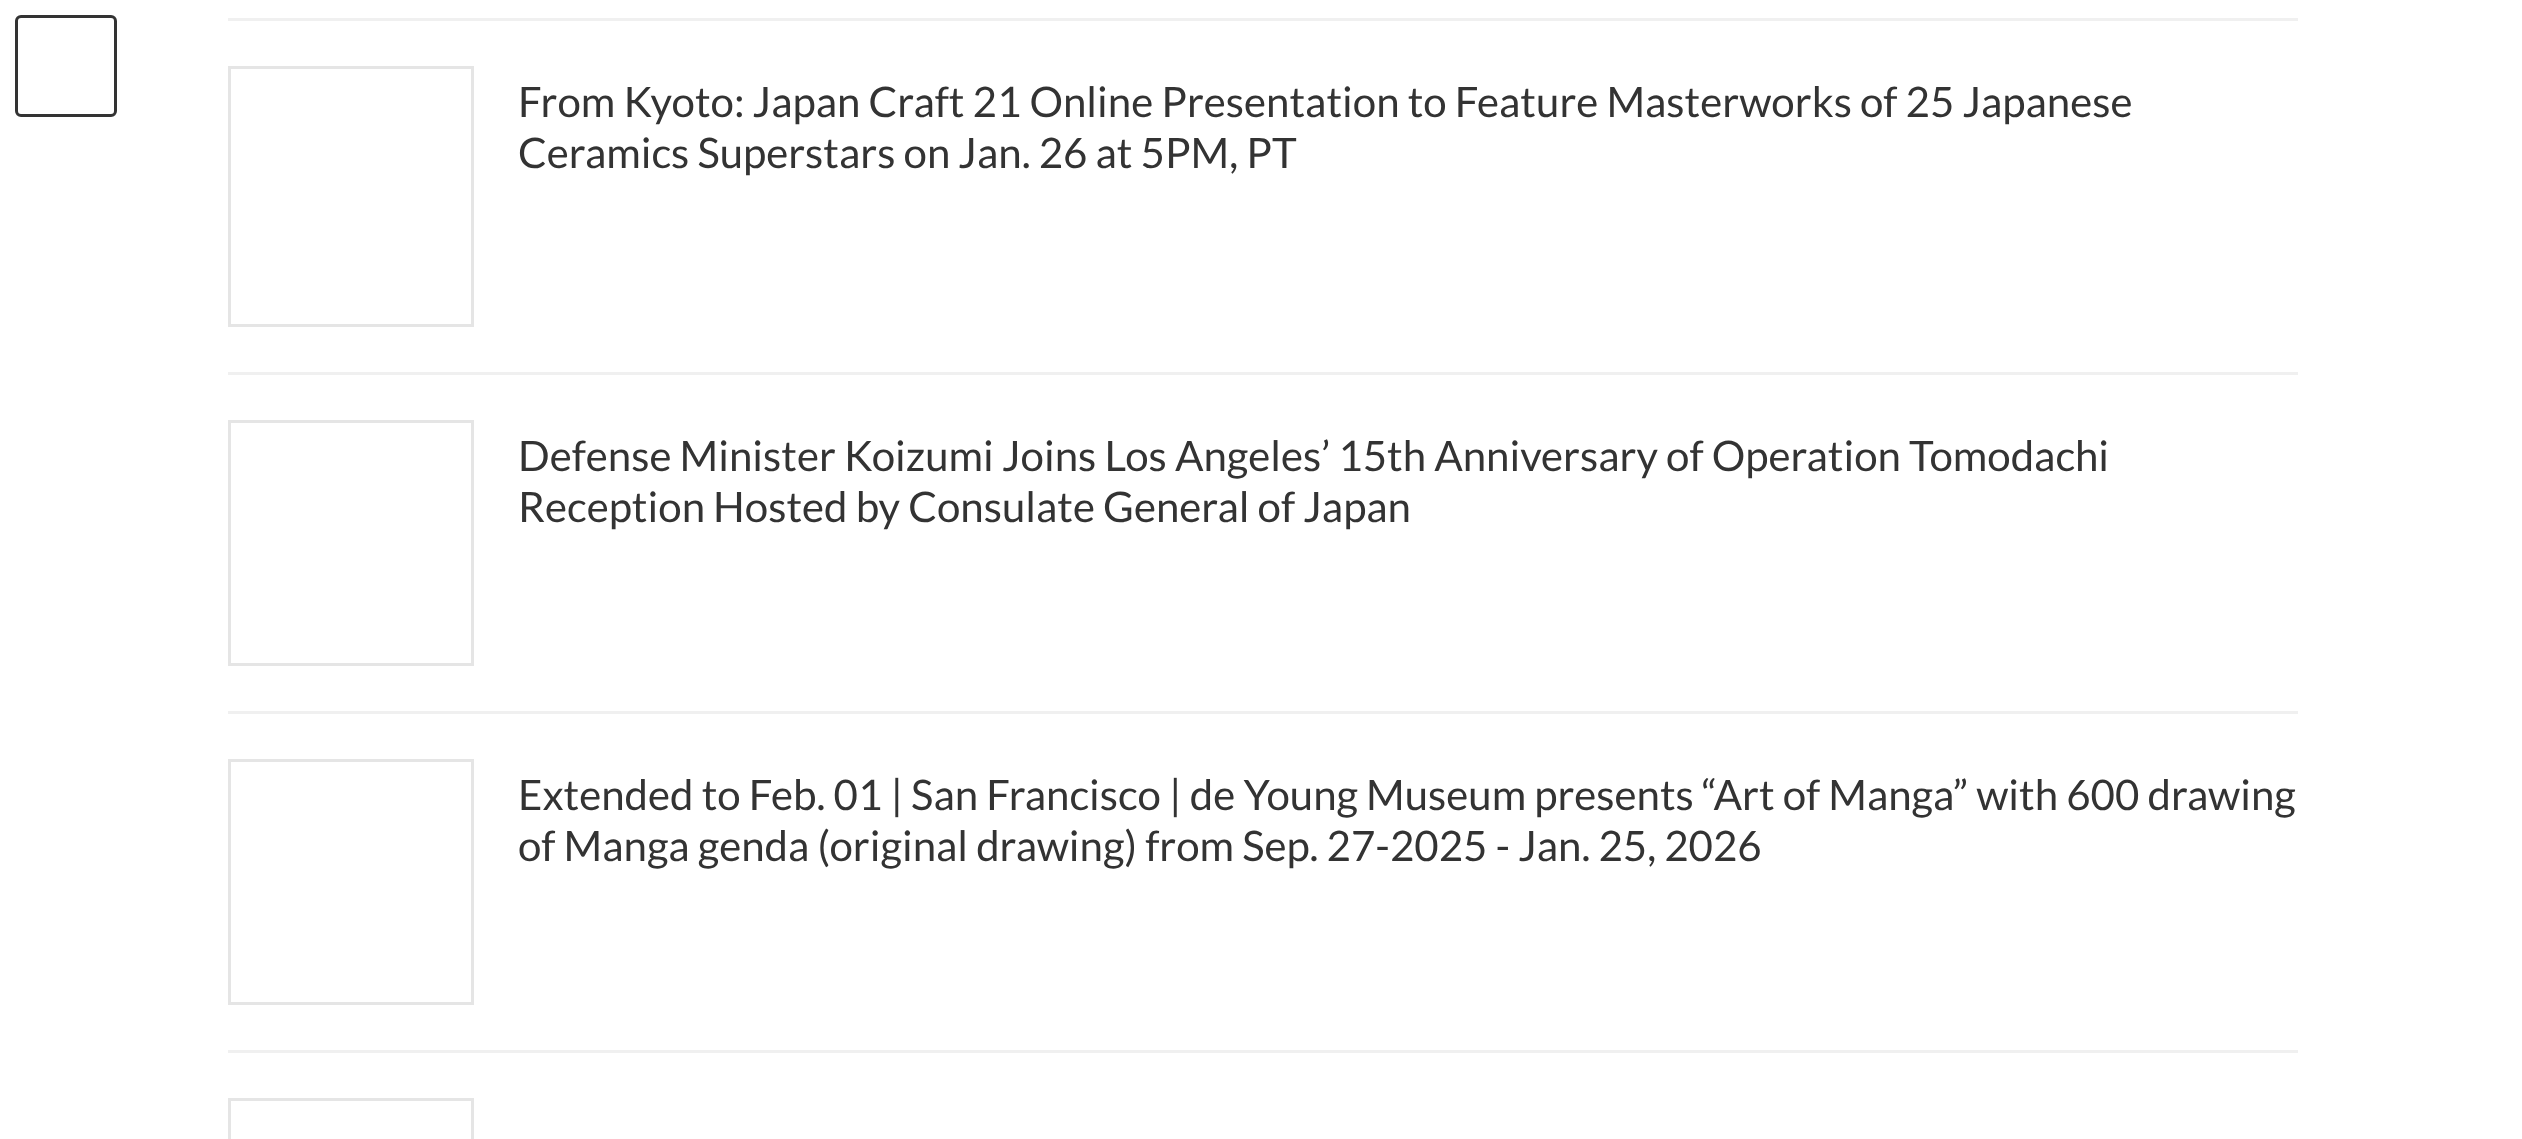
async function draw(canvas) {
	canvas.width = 2522;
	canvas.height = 1139;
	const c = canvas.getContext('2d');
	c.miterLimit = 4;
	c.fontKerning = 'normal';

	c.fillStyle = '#fff';
	c.fillRect(0, 0, 2522, 1139);
	c.beginPath();
	c.roundRect(16.5, 16.5, 99, 99, 4.5);
	c.strokeStyle = '#333';
	c.lineWidth = 3;
	c.stroke();
	c.fillStyle = '#f0f0f0';
	c.fillRect(228, 18, 2070, 3);
	c.fillRect(228, 372, 2070, 3);
	c.strokeStyle = '#e5e5e5';
	c.strokeRect(229.5, 67.5, 243, 258);
	c.font = '42px Lato';
	c.fillStyle = '#333';
	c.fillText('From Kyoto: Japan Craft 21 Online Presentation to Feature Masterworks of 25 Japanese', 518, 117);
	c.fillText('Ceramics Superstars on Jan. 26 at 5PM, PT', 518, 168);
	c.fillStyle = '#f0f0f0';
	c.fillRect(228, 711, 2070, 3);
	c.strokeRect(229.5, 421.5, 243, 243);
	c.fillStyle = '#333';
	c.fillText('Defense Minister Koizumi Joins Los Angeles’ 15th Anniversary of Operation Tomodachi', 518, 471);
	c.fillText('Reception Hosted by Consulate General of Japan', 518, 522);
	c.fillStyle = '#f0f0f0';
	c.fillRect(228, 1050, 2070, 3);
	c.strokeRect(229.5, 760.5, 243, 243);
	c.fillStyle = '#333';
	c.fillText('Extended to Feb. 01 | San Francisco | de Young Museum presents “Art of Manga” with 600 drawing', 518, 810);
	c.fillText('of Manga genda (original drawing) from Sep. 27-2025 - Jan. 25, 2026', 518, 861);
	c.strokeRect(229.5, 1099.5, 243, 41);
}

draw(document.querySelector('canvas'));
